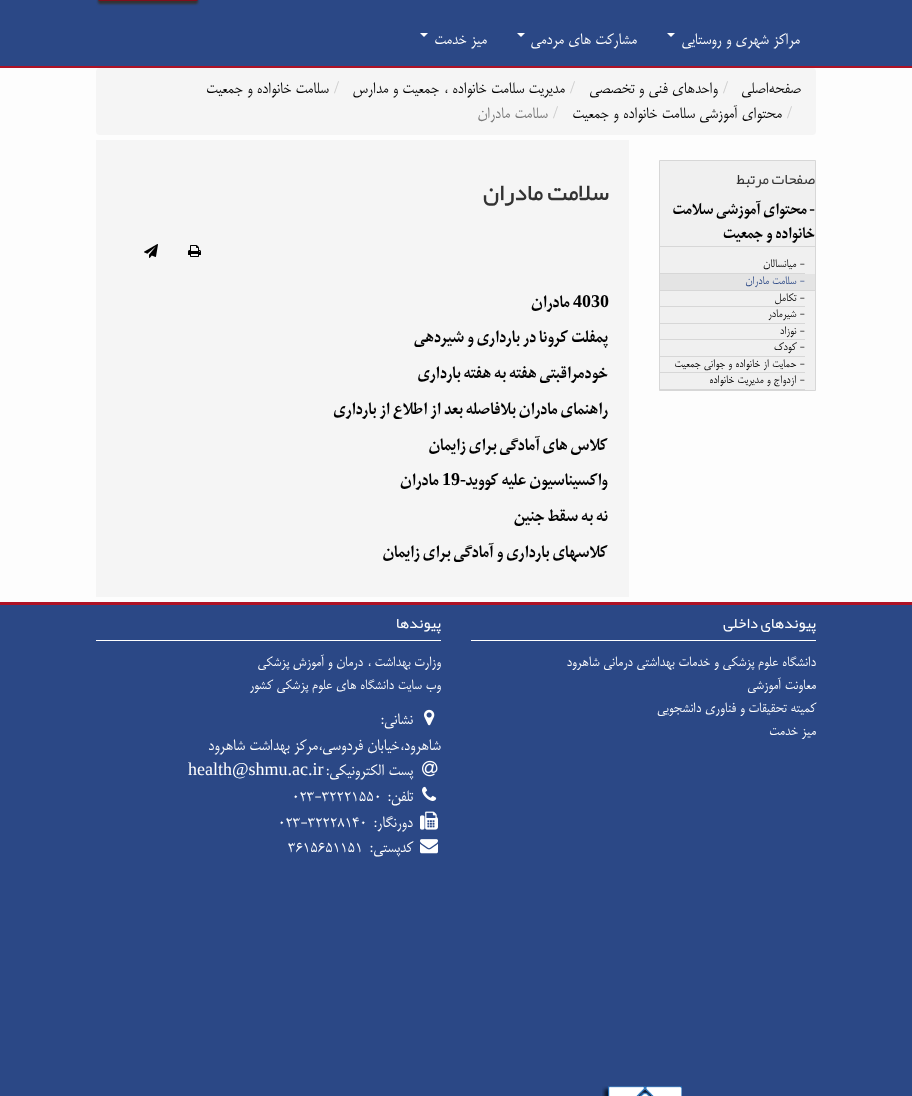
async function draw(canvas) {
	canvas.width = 912;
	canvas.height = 1096;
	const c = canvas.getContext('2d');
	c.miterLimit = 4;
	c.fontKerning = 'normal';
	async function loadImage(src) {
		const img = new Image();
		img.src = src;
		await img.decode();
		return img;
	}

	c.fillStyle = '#fdfdfd';
	c.fillRect(0, 0, 912, 1096);
	c.fillStyle = '#2b4886';
	c.fillRect(0, 0, 912, 66);
	c.fillStyle = '#333';
	c.filter = 'blur(1px)';
	c.beginPath();
	c.roundRect(98, -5, 100, 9, 2);
	c.fill();
	c.filter = 'none';
	c.beginPath();
	c.roundRect(99, -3, 98, 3, 1);
	c.strokeStyle = '#800d1b';
	c.lineWidth = 2;
	c.stroke();
	c.fillStyle = '#ae1225';
	c.fillRect(0, 66, 912, 2);
	c.direction = 'rtl';
	c.font = '18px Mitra';
	c.fillStyle = '#fff';
	c.fillText('مراکز شهری و روستایی', 800, 44);
	c.beginPath();
	c.moveTo(667, 33);
	c.lineTo(675, 33);
	c.lineTo(671, 37);
	c.closePath();
	c.fill();
	c.fillText('مشارکت های مردمی', 637, 44);
	c.beginPath();
	c.moveTo(517, 33);
	c.lineTo(525, 33);
	c.lineTo(521, 37);
	c.closePath();
	c.fill();
	c.fillText('میز خدمت', 487, 44);
	c.beginPath();
	c.moveTo(420, 33);
	c.lineTo(428, 33);
	c.lineTo(424, 37);
	c.closePath();
	c.fill();
	c.fillStyle = '#f5f5f5';
	c.beginPath();
	c.roundRect(96, 68, 720, 67, 4);
	c.fill();
	c.fillStyle = '#000';
	c.fillText('صفحه‌اصلی', 801, 93);
	c.direction = 'ltr';
	c.font = '18px Liberation Serif';
	c.fillStyle = '#ccc';
	c.fillText('/', 723, 93);
	c.direction = 'rtl';
	c.font = '18px Mitra';
	c.fillStyle = '#000';
	c.fillText('واحدهای فنی و تخصصی', 718, 93);
	c.direction = 'ltr';
	c.font = '18px Liberation Serif';
	c.fillStyle = '#ccc';
	c.fillText('/', 570, 93);
	c.direction = 'rtl';
	c.font = '18px Mitra';
	c.fillStyle = '#000';
	c.fillText('مدیریت سلامت خانواده ، جمعیت و مدارس', 565, 93);
	c.direction = 'ltr';
	c.font = '18px Liberation Serif';
	c.fillStyle = '#ccc';
	c.fillText('/', 334, 93);
	c.direction = 'rtl';
	c.font = '18px Mitra';
	c.fillStyle = '#000';
	c.fillText('سلامت خانواده و جمعیت', 329, 93);
	c.direction = 'ltr';
	c.font = '18px Liberation Serif';
	c.fillStyle = '#ccc';
	c.fillText('/', 787, 118);
	c.direction = 'rtl';
	c.font = '18px Mitra';
	c.fillStyle = '#000';
	c.fillText('محتوای آموزشی سلامت خانواده و جمعیت', 782, 118);
	c.direction = 'ltr';
	c.font = '18px Liberation Serif';
	c.fillStyle = '#ccc';
	c.fillText('/', 553, 118);
	c.direction = 'rtl';
	c.font = '18px Mitra';
	c.fillStyle = '#777';
	c.fillText('سلامت مادران', 548, 118);
	c.fillStyle = '#f0f0f0';
	c.beginPath();
	c.rect(659.5, 160.5, 156, 230);
	c.fill();
	c.strokeStyle = '#d7d7d7';
	c.lineWidth = 1;
	c.stroke();
	c.font = '15.25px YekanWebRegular';
	c.fillStyle = '#333';
	c.fillText('صفحات مرتبط', 815, 184);
	c.fillStyle = '#d7d7d7';
	c.fillRect(660, 246, 155, 1);
	c.font = 'bold 17px Liberation Serif';
	c.fillStyle = '#000';
	c.fillText('-', 815, 214);
	c.font = 'bold 17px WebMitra';
	c.fillText('محتوای آموزشی سلامت', 807, 214);
	c.fillText('خانواده و جمعیت', 815, 238);
	c.fillStyle = '#d7d7d7';
	c.fillRect(660, 273, 145, 1);
	c.font = '13px Mitra';
	c.fillStyle = '#000';
	c.fillText('- میانسالان', 805, 267);
	c.fillStyle = '#e4e4e4';
	c.fillRect(660, 274, 155, 16);
	c.fillStyle = '#d7d7d7';
	c.fillRect(660, 290, 155, 1);
	c.fillStyle = '#2b4886';
	c.fillText('- سلامت مادران', 805, 284);
	c.fillStyle = '#d7d7d7';
	c.fillRect(660, 306, 145, 1);
	c.fillStyle = '#000';
	c.fillText('- تکامل', 805, 301);
	c.fillStyle = '#d7d7d7';
	c.fillRect(660, 323, 145, 1);
	c.fillStyle = '#000';
	c.fillText('- شیرمادر', 805, 317);
	c.fillStyle = '#d7d7d7';
	c.fillRect(660, 339, 145, 1);
	c.fillStyle = '#000';
	c.fillText('- نوزاد', 805, 334);
	c.fillStyle = '#d7d7d7';
	c.fillRect(660, 356, 145, 1);
	c.fillStyle = '#000';
	c.fillText('- کودک', 805, 350);
	c.fillStyle = '#d7d7d7';
	c.fillRect(660, 372, 145, 1);
	c.fillStyle = '#000';
	c.fillText('- حمایت از خانواده و جوانی جمعیت', 805, 367);
	c.fillStyle = '#d7d7d7';
	c.fillRect(660, 389, 145, 1);
	c.fillStyle = '#000';
	c.fillText('- ازدواج و مدیریت خانواده', 805, 383);
	c.fillStyle = '#f5f5f5';
	c.fillRect(96, 140, 533, 457);
	c.font = 'bold 23.5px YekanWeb';
	c.fillStyle = '#333';
	c.fillText('سلامت مادران', 609, 200);
	c.drawImage(await loadImage('img1.png'), 188, 245, 13, 12);
	c.drawImage(await loadImage('img2.png'), 144, 244, 14, 14);
	c.direction = 'ltr';
	c.font = 'bold 18px Liberation Serif';
	c.fillStyle = '#000';
	c.fillText('4030', 573, 307);
	c.direction = 'rtl';
	c.font = 'bold 18px WebMitra';
	for (const [text, x, y] of [
		['مادران', 570, 307],
		['پمفلت کرونا در بارداری و شیردهی', 608, 342],
		['خودمراقبتی هفته به هفته بارداری', 608, 378],
		['راهنمای مادران بلافاصله بعد از اطلاع از بارداری', 608, 414],
		['کلاس های آمادگی برای زایمان', 608, 450],
		['واکسیناسیون علیه کووید', 608, 485],
	]) {
		c.fillText(text, x, y);
	}
	c.font = 'bold 18px Liberation Serif';
	c.fillText('-', 466, 485);
	c.direction = 'ltr';
	c.fillText('19', 442, 485);
	c.direction = 'rtl';
	c.font = 'bold 18px WebMitra';
	for (const [text, x, y] of [
		['مادران', 439, 485],
		['نه به سقط جنین', 608, 521],
		['کلاسهای بارداری و آمادگی برای زایمان', 608, 557],
	]) {
		c.fillText(text, x, y);
	}
	for (const [x, y, w, h, color] of [
		[0, 605, 912, 491, '#2b4886'],
		[0, 602, 912, 3, '#ae1225'],
		[471, 640, 345, 1, '#fff'],
	]) {
		c.fillStyle = color;
		c.fillRect(x, y, w, h);
	}
	c.font = '15.25px YekanWebRegular';
	c.fillText('پیوندهای داخلی', 816, 628);
	c.font = '16px Mitra';
	for (const [text, x, y] of [
		['دانشگاه علوم پزشکی و خدمات بهداشتی درمانی شاهرود', 816, 666],
		['معاونت آموزشی', 816, 689],
		['کمیته تحقیقات و فناوری دانشجویی', 816, 712],
		['میز خدمت', 816, 735],
	]) {
		c.fillText(text, x, y);
	}
	c.fillRect(96, 640, 345, 1);
	c.font = '15.25px YekanWebRegular';
	c.fillText('پیوندها', 441, 628);
	c.font = '16px Mitra';
	c.fillText('وزارت بهداشت ، درمان و آموزش پزشکی', 441, 666);
	c.fillText('وب سایت دانشگاه های علوم پزشکی کشور', 441, 689);
	c.drawImage(await loadImage('img3.png'), 424, 709, 11, 17);
	c.font = '18px Mitra';
	c.fillText('نشانی:', 413, 724);
	c.fillText('شاهرود،خیابان فردوسی،مرکز بهداشت شاهرود', 441, 750);
	c.drawImage(await loadImage('img4.png'), 422, 760, 16, 17);
	c.fillText('پست الکترونیکی:', 413, 775);
	c.direction = 'ltr';
	c.font = '18px Liberation Serif';
	c.fillText('health@shmu.ac.ir', 188, 775);
	c.drawImage(await loadImage('img5.png'), 422, 786, 15, 15);
	c.direction = 'rtl';
	c.font = '18px Mitra';
	c.fillText('تلفن:', 413, 801);
	c.direction = 'ltr';
	c.fillText('۰۲۳-۳۲۲۲۱۵۵۰', 292, 801);
	c.drawImage(await loadImage('img6.png'), 420, 811, 18, 19);
	c.direction = 'rtl';
	c.fillText('دورنگار:', 413, 827);
	c.direction = 'ltr';
	c.fillText('۰۲۳-۳۲۲۲۸۱۴۰', 278, 827);
	c.drawImage(await loadImage('img7.png'), 420, 839, 18, 15);
	c.direction = 'rtl';
	c.fillText('کدپستی:', 413, 852);
	c.direction = 'ltr';
	c.fillText('۳۶۱۵۶۵۱۱۵۱', 288, 852);
	c.drawImage(await loadImage('img8.png'), 602, 1086, 80, 10);
}

draw(document.querySelector('canvas'));
